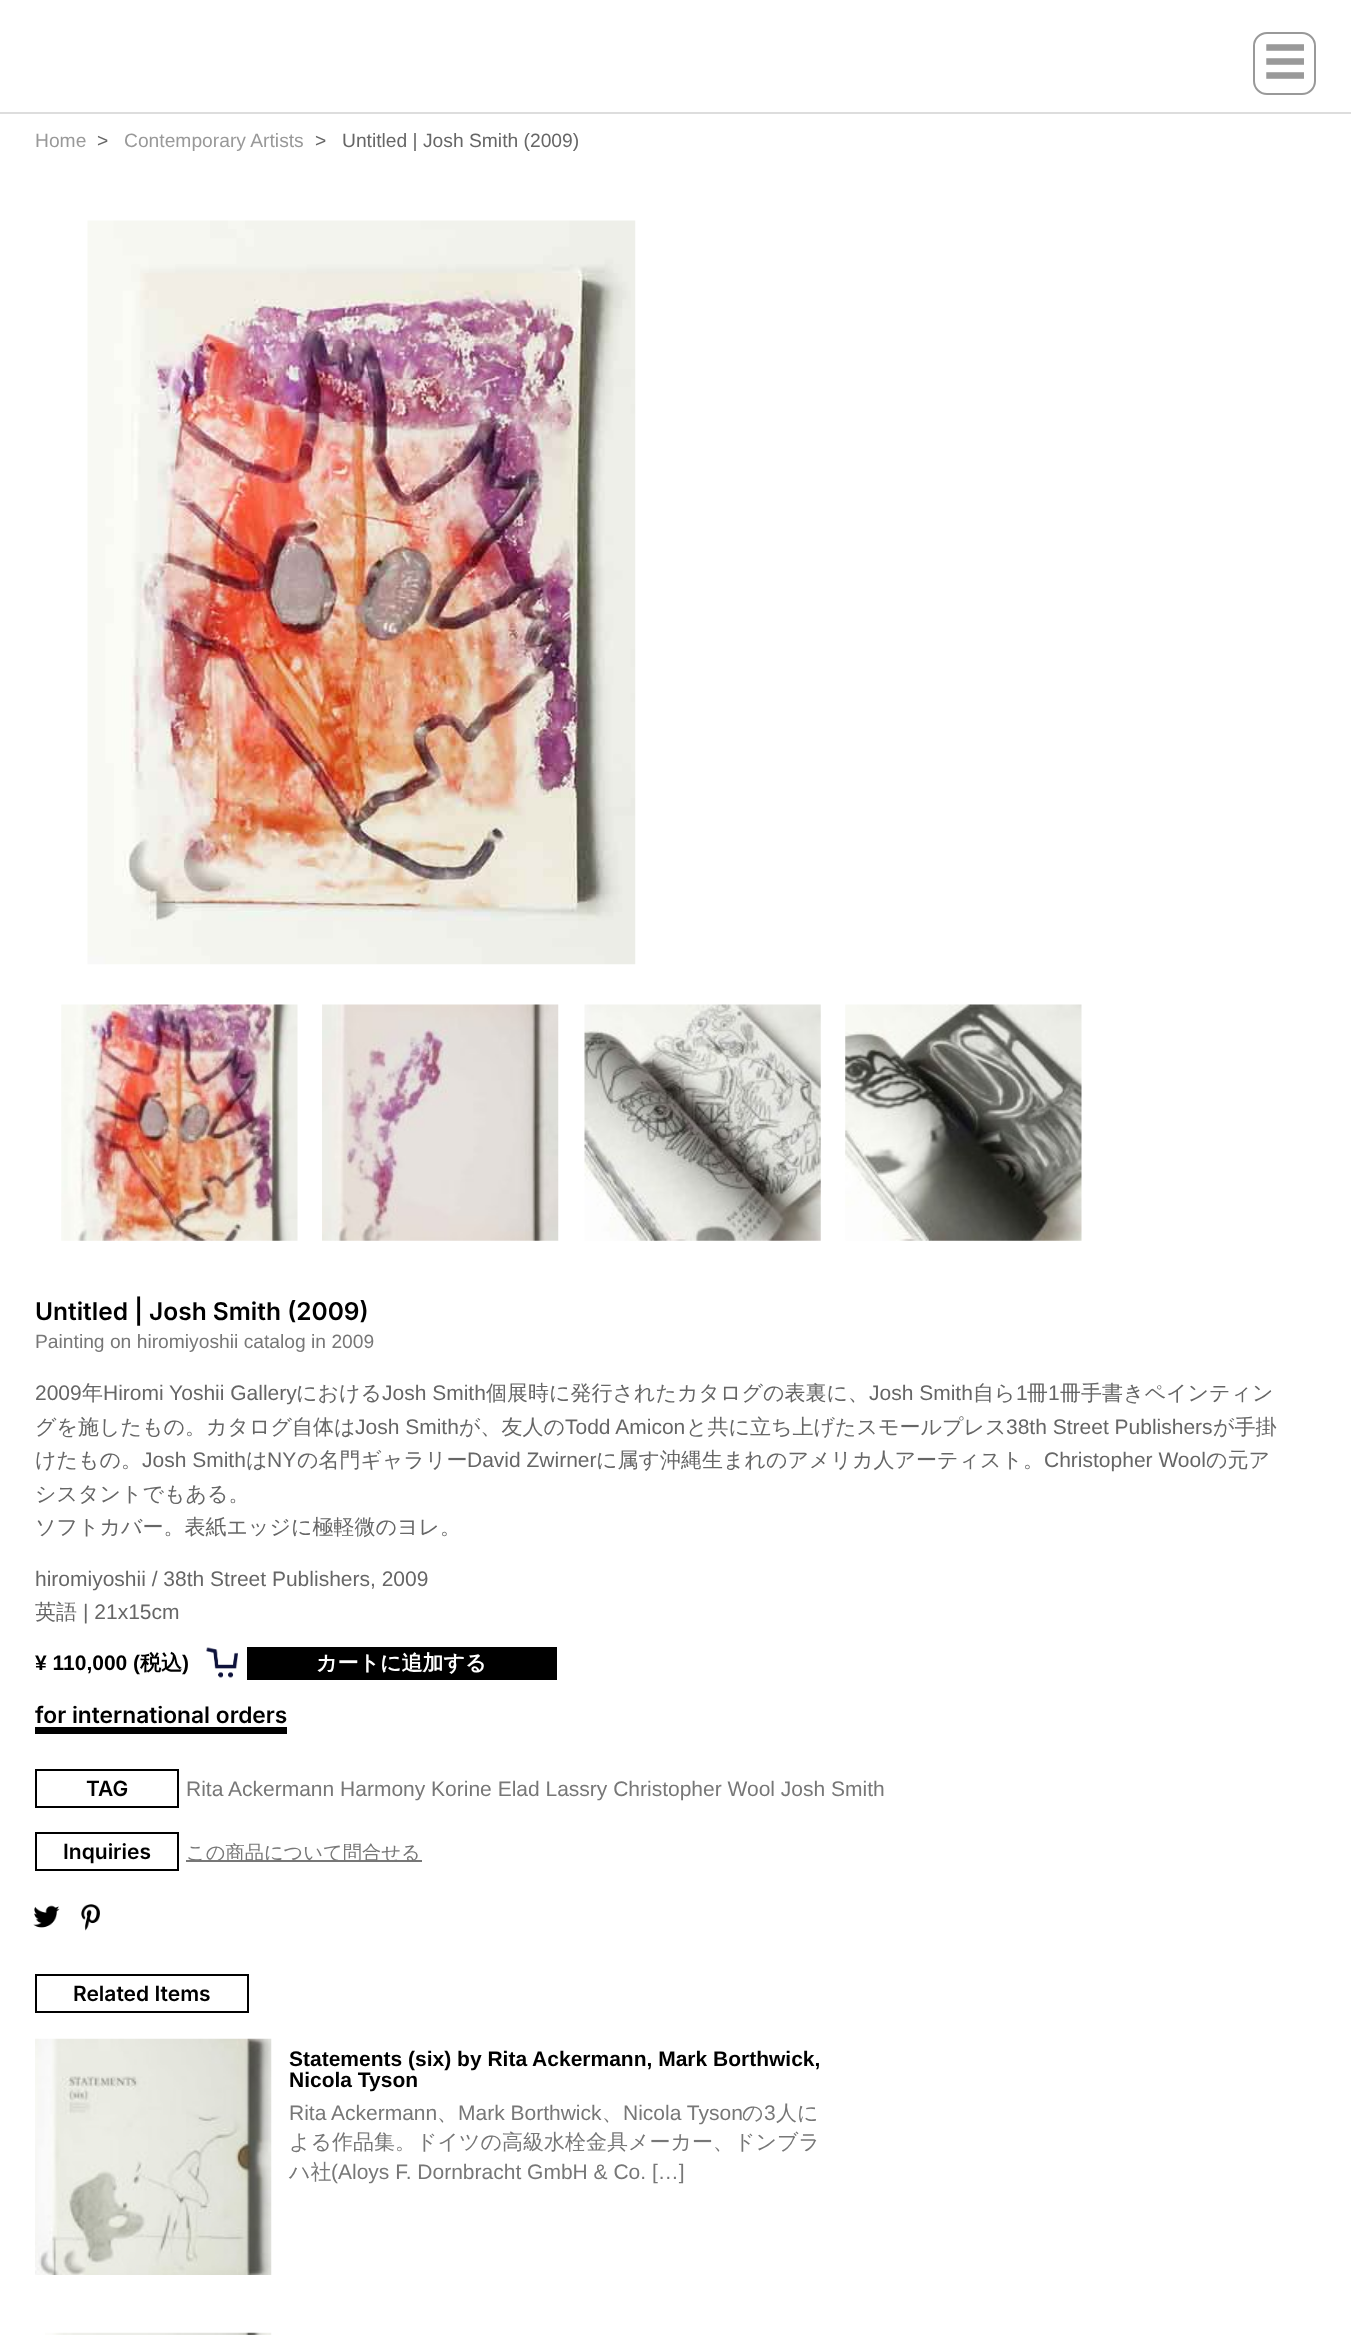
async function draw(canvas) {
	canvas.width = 1351;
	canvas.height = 2335;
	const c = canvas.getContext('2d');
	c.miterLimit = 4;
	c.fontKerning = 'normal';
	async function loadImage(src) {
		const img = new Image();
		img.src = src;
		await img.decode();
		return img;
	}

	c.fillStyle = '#fff';
	c.fillRect(0, 0, 1351, 2335);
	c.fillStyle = '#ddd';
	c.fillRect(0, 112, 1351, 2);
	c.beginPath();
	c.roundRect(1254, 33, 61, 61, 13);
	c.strokeStyle = '#999';
	c.lineWidth = 2;
	c.stroke();
	c.font = '500 42px WenQuanYi Zen Hei';
	c.fillStyle = '#999';
	c.fillText('☰', 1264, 77);
	c.font = '19.25px Liberation Sans';
	c.fillText('Home', 35, 147);
	c.fillStyle = '#666';
	c.fillText('>', 97, 147);
	c.fillStyle = '#999';
	c.fillText('Contemporary Artists', 124, 147);
	c.fillStyle = '#666';
	c.fillText('>', 315, 147);
	c.fillText('Untitled | Josh Smith (2009)', 342, 147);
	c.drawImage(await loadImage('img1.png'), 87, 220, 549, 745);
	c.drawImage(await loadImage('img2.png'), 61, 1004, 237, 237);
	c.drawImage(await loadImage('img3.png'), 322, 1004, 237, 237);
	c.drawImage(await loadImage('img4.png'), 584, 1004, 237, 237);
	c.drawImage(await loadImage('img5.png'), 845, 1004, 237, 237);
	c.font = '600 24.5px Inter';
	c.fillStyle = '#000';
	c.fillText('Untitled | Josh Smith (2009)', 35, 1320);
	c.font = '19.25px Liberation Sans';
	c.fillStyle = '#777';
	c.fillText('Painting on hiromiyoshii catalog in 2009', 35, 1348);
	c.font = '21px Liberation Sans';
	c.fillStyle = '#666';
	c.fillText('2009', 35, 1400);
	c.font = '500 21px WenQuanYi Zen Hei';
	c.fillText('年', 82, 1400);
	c.font = '21px Liberation Sans';
	c.fillText('Hiromi Yoshii Gallery', 103, 1400);
	c.font = '500 21px WenQuanYi Zen Hei';
	c.fillText('における', 296, 1400);
	c.font = '21px Liberation Sans';
	c.fillText('Josh Smith', 382, 1400);
	c.font = '500 21px WenQuanYi Zen Hei';
	c.fillText('個展時に発行されたカタログの表裏に、', 486, 1400);
	c.font = '21px Liberation Sans';
	c.fillText('Josh Smith', 869, 1400);
	c.font = '500 21px WenQuanYi Zen Hei';
	c.fillText('自ら', 973, 1400);
	c.font = '21px Liberation Sans';
	c.fillText('1', 1016, 1400);
	c.font = '500 21px WenQuanYi Zen Hei';
	c.fillText('冊', 1027, 1400);
	c.font = '21px Liberation Sans';
	c.fillText('1', 1048, 1400);
	c.font = '500 21px WenQuanYi Zen Hei';
	c.fillText('冊手書きペインティン', 1060, 1400);
	c.fillText('グを施したもの。カタログ自体は', 35, 1434);
	c.font = '21px Liberation Sans';
	c.fillText('Josh Smith', 355, 1434);
	c.font = '500 21px WenQuanYi Zen Hei';
	c.fillText('が、友人の', 459, 1434);
	c.font = '21px Liberation Sans';
	c.fillText('Todd Amicon', 565, 1434);
	c.font = '500 21px WenQuanYi Zen Hei';
	c.fillText('と共に立ち上げたスモールプレス', 686, 1434);
	c.font = '21px Liberation Sans';
	c.fillText('38th Street Publishers', 1006, 1434);
	c.font = '500 21px WenQuanYi Zen Hei';
	c.fillText('が手掛', 1213, 1434);
	c.fillText('けたもの。', 35, 1467);
	c.font = '21px Liberation Sans';
	c.fillText('Josh Smith', 142, 1467);
	c.font = '500 21px WenQuanYi Zen Hei';
	c.fillText('は', 246, 1467);
	c.font = '21px Liberation Sans';
	c.fillText('NY', 267, 1467);
	c.font = '500 21px WenQuanYi Zen Hei';
	c.fillText('の名門ギャラリー', 297, 1467);
	c.font = '21px Liberation Sans';
	c.fillText('David Zwirner', 467, 1467);
	c.font = '500 21px WenQuanYi Zen Hei';
	c.fillText('に属す沖縄生まれのアメリカ人アーティスト。', 596, 1467);
	c.font = '21px Liberation Sans';
	c.fillText('Christopher Wool', 1044, 1467);
	c.font = '500 21px WenQuanYi Zen Hei';
	for (const [text, x, y] of [
		['の元ア', 1206, 1467],
		['シスタントでもある。', 35, 1501],
		['ソフトカバー。表紙エッジに極軽微のヨレ。', 35, 1534],
	]) {
		c.fillText(text, x, y);
	}
	c.font = '21px Liberation Sans';
	c.fillText('hiromiyoshii / 38th Street Publishers, 2009', 35, 1586);
	c.font = '500 21px WenQuanYi Zen Hei';
	c.fillText('英語', 35, 1619);
	c.font = '21px Liberation Sans';
	c.fillText('| 21x15cm', 83, 1619);
	c.font = 'bold 21px Liberation Sans';
	c.fillStyle = '#000';
	c.fillText('¥ 110,000 (', 35, 1670);
	c.font = 'bold 21px WenQuanYi Zen Hei';
	c.fillText('税込', 140, 1670);
	c.font = 'bold 21px Liberation Sans';
	c.fillText(')', 182, 1670);
	c.drawImage(await loadImage('img6.png'), 206, 1647, 32, 31);
	c.fillRect(247, 1647, 310, 33);
	c.font = 'bold 21px WenQuanYi Zen Hei';
	c.fillStyle = '#fff';
	c.fillText('カートに追加する', 316, 1670);
	c.font = '600 22.75px Inter';
	c.fillStyle = '#000';
	c.fillText('for international orders', 35, 1723);
	c.fillRect(35, 1727, 252, 7);
	c.strokeStyle = '#000';
	c.strokeRect(36, 1770, 142, 37);
	c.font = '600 21px Inter';
	c.fillText('TAG', 86, 1796);
	c.font = '21px Liberation Sans';
	c.fillStyle = '#777';
	c.fillText('Rita Ackermann Harmony Korine Elad Lassry Christopher Wool Josh Smith', 186, 1796);
	c.strokeRect(36, 1833, 142, 37);
	c.font = '600 21px Inter';
	c.fillStyle = '#000';
	c.fillText('Inquiries', 63, 1859);
	c.fillStyle = '#777';
	c.fillRect(186, 1860, 236, 2);
	c.font = '500 19.25px WenQuanYi Zen Hei';
	c.fillText('この商品について問合せる', 186, 1859);
	c.drawImage(await loadImage('img7.png'), 33, 1905, 27, 23);
	c.drawImage(await loadImage('img8.png'), 81, 1904, 19, 27);
	c.strokeRect(36, 1975, 212, 37);
	c.font = '600 21px Inter';
	c.fillStyle = '#000';
	c.fillText('Related Items', 73, 2001);
	c.drawImage(await loadImage('img9.png'), 35, 2038, 237, 237);
	c.font = 'bold 21px Liberation Sans';
	c.fillText('Statements (six) by Rita Ackermann, Mark Borthwick,', 289, 2066);
	c.fillText('Nicola Tyson', 289, 2087);
	c.font = '21px Liberation Sans';
	c.fillStyle = '#777';
	c.fillText('Rita Ackermann', 289, 2120);
	c.font = '500 21px WenQuanYi Zen Hei';
	c.fillText('、', 437, 2120);
	c.font = '21px Liberation Sans';
	c.fillText('Mark Borthwick', 458, 2120);
	c.font = '500 21px WenQuanYi Zen Hei';
	c.fillText('、', 602, 2120);
	c.font = '21px Liberation Sans';
	c.fillText('Nicola Tyson', 623, 2120);
	c.font = '500 21px WenQuanYi Zen Hei';
	c.fillText('の', 742, 2120);
	c.font = '21px Liberation Sans';
	c.fillText('3', 764, 2120);
	c.font = '500 21px WenQuanYi Zen Hei';
	for (const [text, x, y] of [
		['人に', 776, 2120],
		['よる作品集。ドイツの高級水栓金具メーカー、ドンブラ', 289, 2149],
		['ハ社', 289, 2179],
	]) {
		c.fillText(text, x, y);
	}
	c.font = '21px Liberation Sans';
	c.fillText('(Aloys F. Dornbracht GmbH & Co. […]', 331, 2179);
	c.drawImage(await loadImage('img10.png'), 45, 2332, 227, 3);
}

draw(document.querySelector('canvas'));
